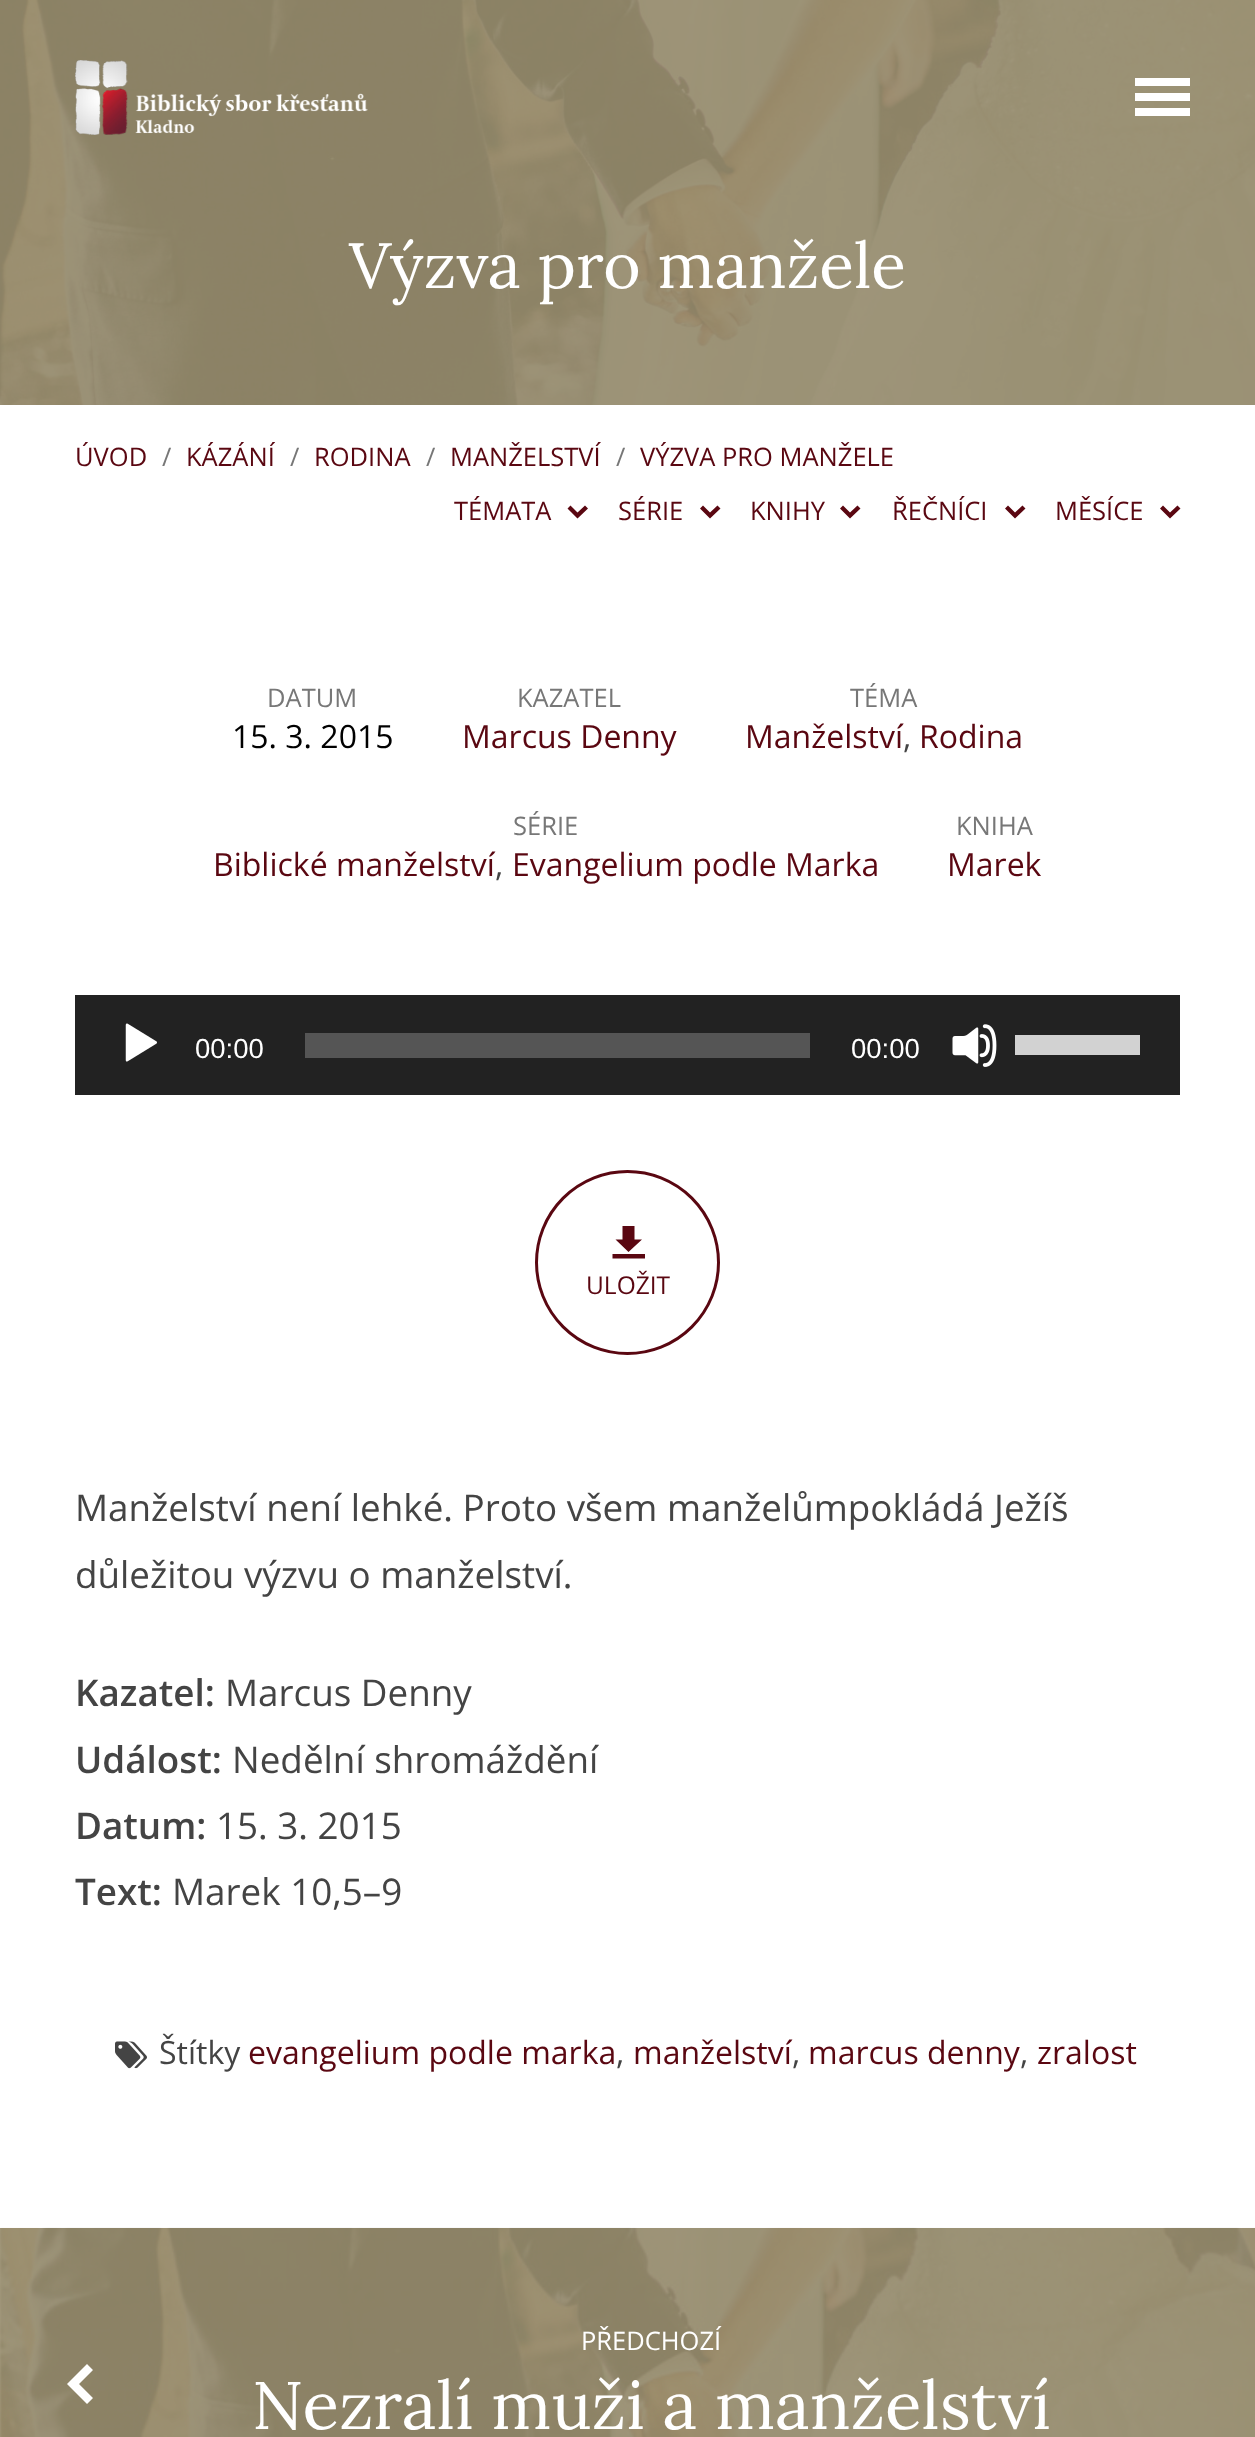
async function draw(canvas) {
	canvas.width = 1255;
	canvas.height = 2437;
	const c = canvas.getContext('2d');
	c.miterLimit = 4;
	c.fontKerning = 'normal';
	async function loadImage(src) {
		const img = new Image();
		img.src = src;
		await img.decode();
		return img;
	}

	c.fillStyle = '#fff';
	c.fillRect(0, 0, 1255, 2437);
	c.fillStyle = '#9b9071';
	c.fillRect(0, 0, 1255, 405);
	c.drawImage(await loadImage('img2.png'), 0, 0, 1255, 405);
	c.drawImage(await loadImage('img1.png'), 75, 60, 293, 75);
	for (const [x, y, w, h, color] of [
		[1135, 78, 55, 8, '#fff'],
		[1135, 93, 55, 8, '#fff'],
		[1135, 108, 55, 8, '#fff'],
	]) {
		c.fillStyle = color;
		c.fillRect(x, y, w, h);
	}
	c.font = '64px Lora';
	c.fillText('Výzva pro manžele', 349, 288);
	c.font = '25.5px Open Sans';
	c.fillStyle = '#5a0711';
	c.fillText('ÚVOD', 75, 466);
	c.fillStyle = '#777';
	c.fillText('/', 162, 466);
	c.fillStyle = '#5a0711';
	c.fillText('KÁZÁNÍ', 186, 466);
	c.fillStyle = '#777';
	c.fillText('/', 290, 466);
	c.fillStyle = '#5a0711';
	c.fillText('RODINA', 314, 466);
	c.fillStyle = '#777';
	c.fillText('/', 426, 466);
	c.fillStyle = '#5a0711';
	c.fillText('MANŽELSTVÍ', 450, 466);
	c.fillStyle = '#777';
	c.fillText('/', 616, 466);
	c.fillStyle = '#5a0711';
	c.fillText('VÝZVA PRO MANŽELE', 640, 466);
	c.fillText('TÉMATA', 454, 520);
	c.beginPath();
	c.moveTo(577.5, 518.5);
	c.lineTo(567.5, 508.5);
	c.lineTo(570.5, 505.5);
	c.lineTo(577.5, 512.5);
	c.lineTo(585, 505.5);
	c.lineTo(588, 508.5);
	c.closePath();
	c.fill();
	c.fillText('SÉRIE', 618, 520);
	c.beginPath();
	c.moveTo(710, 518.5);
	c.lineTo(700, 508.5);
	c.lineTo(703, 505.5);
	c.lineTo(710, 512.5);
	c.lineTo(717.5, 505.5);
	c.lineTo(720.5, 508.5);
	c.closePath();
	c.fill();
	c.fillText('KNIHY', 750, 520);
	c.beginPath();
	c.moveTo(850, 518.5);
	c.lineTo(840, 508.5);
	c.lineTo(843, 505.5);
	c.lineTo(850, 512.5);
	c.lineTo(857.5, 505.5);
	c.lineTo(860.5, 508.5);
	c.closePath();
	c.fill();
	c.fillText('ŘEČNÍCI', 892, 520);
	c.beginPath();
	c.moveTo(1015, 518.5);
	c.lineTo(1005, 508.5);
	c.lineTo(1008, 505.5);
	c.lineTo(1015, 512.5);
	c.lineTo(1022.5, 505.5);
	c.lineTo(1025.5, 508.5);
	c.closePath();
	c.fill();
	c.fillText('MĚSÍCE', 1055, 520);
	c.beginPath();
	c.moveTo(1170, 518.5);
	c.lineTo(1160, 508.5);
	c.lineTo(1163, 505.5);
	c.lineTo(1170, 512.5);
	c.lineTo(1177.5, 505.5);
	c.lineTo(1180.5, 508.5);
	c.closePath();
	c.fill();
	c.fillStyle = '#777';
	c.fillText('DATUM', 267, 707);
	c.font = '32px Open Sans';
	c.fillStyle = '#000';
	c.fillText('15. 3. 2015', 232, 748);
	c.font = '25.5px Open Sans';
	c.fillStyle = '#777';
	c.fillText('KAZATEL', 517, 707);
	c.font = '32px Open Sans';
	c.fillStyle = '#5a0711';
	c.fillText('Marcus Denny', 462, 748);
	c.font = '25.5px Open Sans';
	c.fillStyle = '#777';
	c.fillText('TÉMA', 850, 707);
	c.font = '32px Open Sans';
	c.fillStyle = '#5a0711';
	c.fillText('Manželství', 745, 748);
	c.fillStyle = '#444';
	c.fillText(',', 903, 748);
	c.fillStyle = '#5a0711';
	c.fillText('Rodina', 919, 748);
	c.font = '25.5px Open Sans';
	c.fillStyle = '#777';
	c.fillText('SÉRIE', 513, 835);
	c.font = '32px Open Sans';
	c.fillStyle = '#5a0711';
	c.fillText('Biblické manželství', 213, 876);
	c.fillStyle = '#444';
	c.fillText(',', 495, 876);
	c.fillStyle = '#5a0711';
	c.fillText('Evangelium podle Marka', 512, 876);
	c.font = '25.5px Open Sans';
	c.fillStyle = '#777';
	c.fillText('KNIHA', 956, 835);
	c.font = '32px Open Sans';
	c.fillStyle = '#5a0711';
	c.fillText('Marek', 947, 876);
	c.fillStyle = '#222';
	c.fillRect(75, 995, 1105, 100);
	c.drawImage(await loadImage('img3.png'), 125, 1023, 32, 39);
	c.font = '27.5px Liberation Sans';
	c.fillStyle = '#fff';
	c.fillText('00:00', 195, 1058);
	c.fillStyle = '#555';
	c.fillRect(305, 1033, 505, 25);
	c.fillStyle = '#fff';
	c.fillText('00:00', 851, 1058);
	c.drawImage(await loadImage('img4.png'), 952, 1024, 45, 43);
	c.fillStyle = '#d2d2d2';
	c.fillRect(1015, 1035, 125, 20);
	c.beginPath();
	c.arc(627.5, 1262.5, 91, 0, 2 * Math.PI);
	c.strokeStyle = '#5a0711';
	c.lineWidth = 3;
	c.stroke();
	c.fillStyle = '#5a0711';
	c.beginPath();
	c.moveTo(612.5, 1254);
	c.lineTo(645, 1254);
	c.lineTo(645, 1258.5);
	c.lineTo(612.5, 1258.5);
	c.closePath();
	c.moveTo(634.5, 1226);
	c.lineTo(634.5, 1239.5);
	c.lineTo(642, 1239.5);
	c.lineTo(628.5, 1252);
	c.lineTo(615.5, 1239.5);
	c.lineTo(622.5, 1239.5);
	c.lineTo(622.5, 1226);
	c.closePath();
	c.fill();
	c.font = '24.5px Open Sans';
	c.fillText('ULOŽIT', 586, 1294);
	c.font = '36.8px Open Sans';
	c.fillStyle = '#444';
	c.fillText('Manželství není lehké. Proto všem manželůmpokládá Ježíš', 75, 1521);
	c.fillText('důležitou výzvu o manželství.', 75, 1588);
	c.font = '600 36.8px Open Sans';
	c.fillText('Kazatel:', 75, 1706);
	c.font = '36.8px Open Sans';
	c.fillText('Marcus Denny', 225, 1706);
	c.font = '600 36.8px Open Sans';
	c.fillText('Událost:', 75, 1773);
	c.font = '36.8px Open Sans';
	c.fillText('Nedělní shromáždění', 232, 1773);
	c.font = '600 36.8px Open Sans';
	c.fillText('Datum:', 75, 1839);
	c.font = '36.8px Open Sans';
	c.fillText('15. 3. 2015', 216, 1839);
	c.font = '600 36.8px Open Sans';
	c.fillText('Text:', 75, 1905);
	c.font = '36.8px Open Sans';
	c.fillText('Marek 10,5–9', 172, 1905);
	c.drawImage(await loadImage('img5.png'), 115, 2041, 32, 28);
	c.font = '32px Open Sans';
	c.fillText('Štítky', 159, 2064);
	c.fillStyle = '#5a0711';
	c.fillText('evangelium podle marka', 248, 2064);
	c.fillStyle = '#444';
	c.fillText(',', 616, 2064);
	c.fillStyle = '#5a0711';
	c.fillText('manželství', 633, 2064);
	c.fillStyle = '#444';
	c.fillText(',', 792, 2064);
	c.fillStyle = '#5a0711';
	c.fillText('marcus denny', 808, 2064);
	c.fillStyle = '#444';
	c.fillText(',', 1020, 2064);
	c.fillStyle = '#5a0711';
	c.fillText('zralost', 1037, 2064);
	c.fillStyle = '#9b9071';
	c.fillRect(0, 2228, 1255, 209);
	c.drawImage(await loadImage('img6.png'), 0, 2227, 1255, 210);
	c.fillStyle = '#fff';
	c.beginPath();
	c.moveTo(67, 2384);
	c.lineTo(87, 2364);
	c.lineTo(93, 2370);
	c.lineTo(79, 2384);
	c.lineTo(93, 2398);
	c.lineTo(87, 2404);
	c.closePath();
	c.fill();
	c.font = '25.5px Open Sans';
	c.fillText('PŘEDCHOZÍ', 581, 2350);
	c.font = '67.25px Lora';
	c.fillText('Nezralí muži a manželství', 252, 2429);
}

draw(document.querySelector('canvas'));
